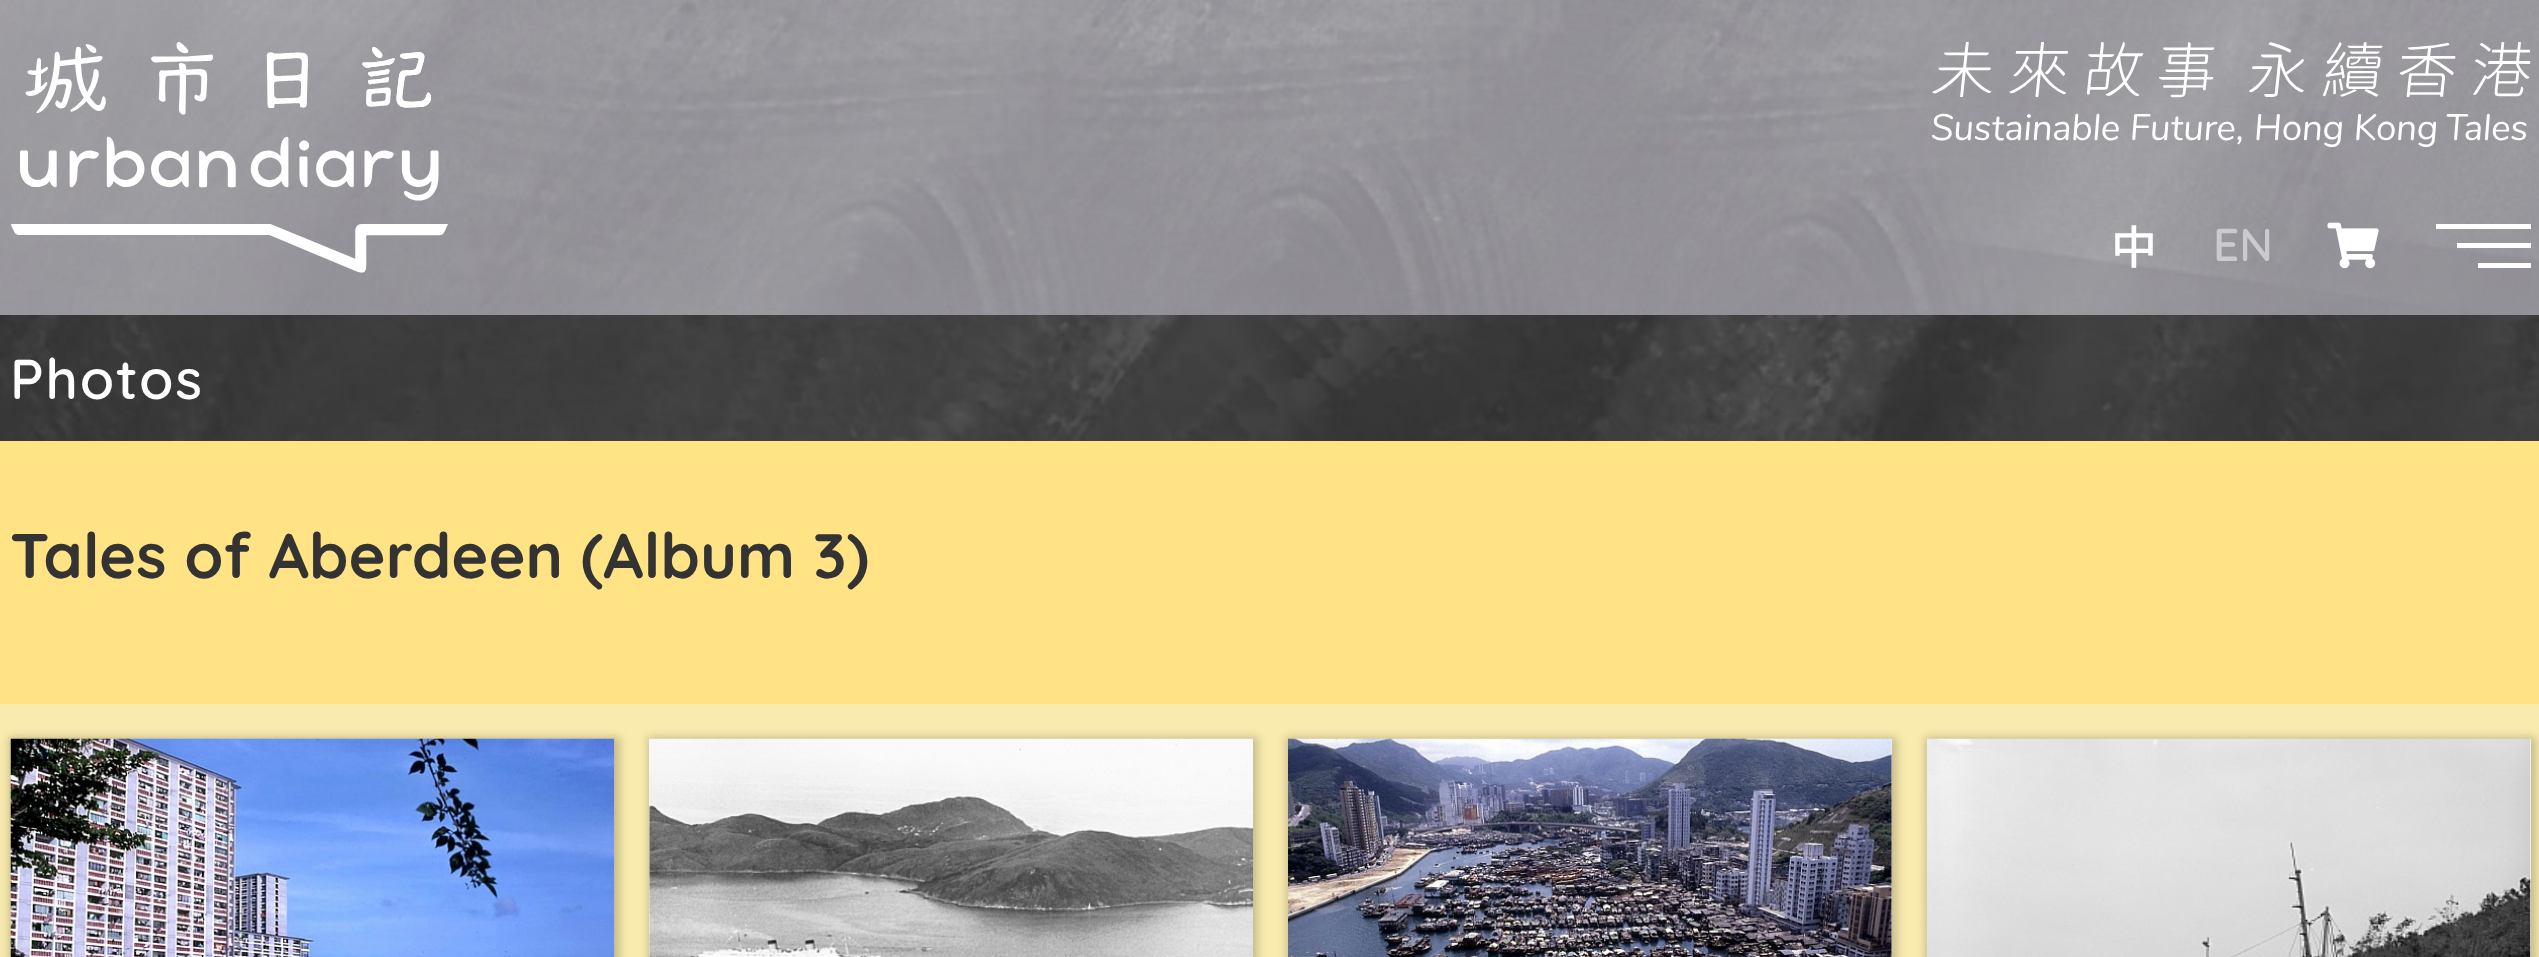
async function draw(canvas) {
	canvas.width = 2539;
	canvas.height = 957;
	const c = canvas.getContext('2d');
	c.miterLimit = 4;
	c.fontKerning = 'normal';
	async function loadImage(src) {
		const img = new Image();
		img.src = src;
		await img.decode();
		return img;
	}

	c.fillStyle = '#fff';
	c.fillRect(0, 0, 2539, 957);
	c.drawImage(await loadImage('img1.png'), 0, 0, 2539, 315);
	c.drawImage(await loadImage('img2.png'), 11, 42, 437, 231);
	c.drawImage(await loadImage('img3.png'), 1932, 42, 599, 105);
	c.font = '500 46px Noto Sans TC';
	c.fillText('中', 2111, 264);
	c.font = '600 46px Quicksand';
	c.fillStyle = '#cbcacd';
	c.fillText('EN', 2213, 261);
	c.drawImage(await loadImage('img4.png'), 2327, 222, 52, 47);
	for (const [x, y, w, h, color] of [
		[2436, 224, 95, 5, '#fff'],
		[2457, 243, 74, 5, '#fff'],
		[2478, 263, 53, 5, '#fff'],
	]) {
		c.fillStyle = color;
		c.fillRect(x, y, w, h);
	}
	c.drawImage(await loadImage('img5.png'), 0, 315, 2539, 126);
	c.letterSpacing = '1.75px';
	c.font = '600 56px Quicksand';
	c.fillText('Photos', 10, 399);
	c.fillStyle = '#ffe384';
	c.fillRect(0, 441, 2539, 263);
	c.letterSpacing = '0px';
	c.font = 'bold 63px Quicksand';
	c.fillStyle = '#333';
	c.fillText('Tales of Aberdeen (Album 3)', 10, 578);
	c.fillStyle = '#f9ebae';
	c.fillRect(0, 704, 2539, 253);
	c.fillStyle = '#00000033';
	c.filter = 'blur(4.5px)';
	c.beginPath();
	c.rect(9, 737, 611, 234);
	c.fill();
	c.filter = 'none';
	c.drawImage(await loadImage('img6.png'), 10, 738, 605, 219);
	c.filter = 'blur(4.5px)';
	c.beginPath();
	c.rect(648, 737, 610, 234);
	c.fill();
	c.filter = 'none';
	c.fillStyle = '#f8f8f8';
	c.fillRect(649, 739, 1, 218);
	c.drawImage(await loadImage('img7.png'), 649, 738, 604, 219);
	c.fillStyle = '#00000033';
	c.filter = 'blur(4.5px)';
	c.beginPath();
	c.rect(1286, 737, 611, 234);
	c.fill();
	c.filter = 'none';
	c.fillStyle = '#f8f8f8';
	c.fillRect(1891, 739, 1, 218);
	c.drawImage(await loadImage('img8.png'), 1288, 738, 604, 219);
	c.fillStyle = '#00000033';
	c.filter = 'blur(4.5px)';
	c.beginPath();
	c.rect(1925, 737, 611, 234);
	c.fill();
	c.filter = 'none';
	c.fillStyle = '#f8f8f8';
	c.fillRect(2530, 739, 1, 218);
	c.drawImage(await loadImage('img9.png'), 1926, 738, 605, 219);
}

draw(document.querySelector('canvas'));
